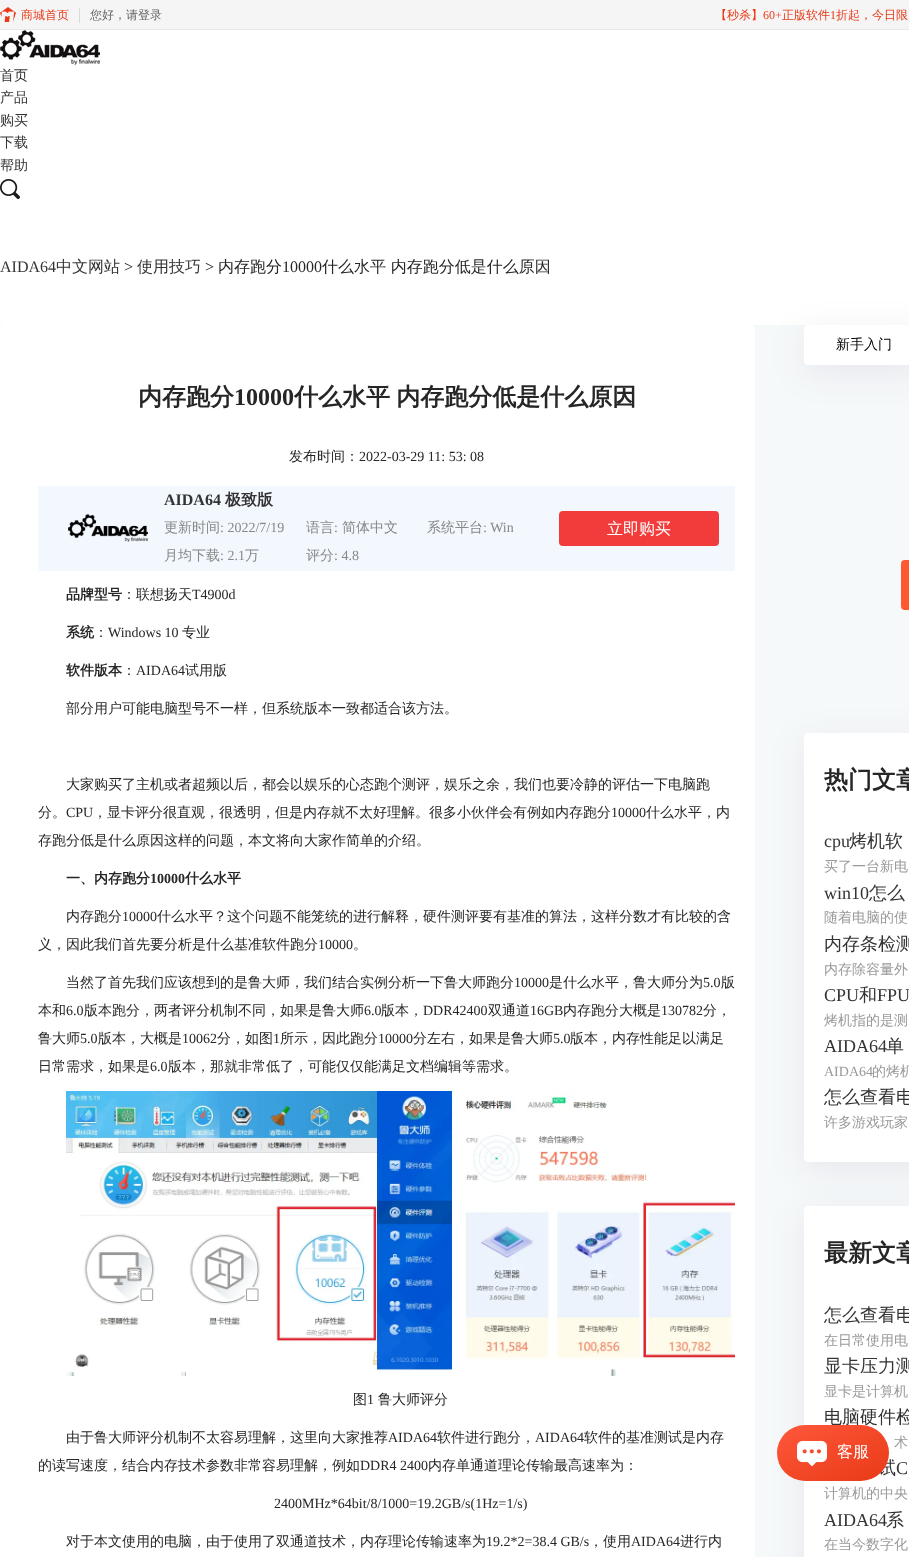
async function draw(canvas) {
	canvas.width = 909;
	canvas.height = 1557;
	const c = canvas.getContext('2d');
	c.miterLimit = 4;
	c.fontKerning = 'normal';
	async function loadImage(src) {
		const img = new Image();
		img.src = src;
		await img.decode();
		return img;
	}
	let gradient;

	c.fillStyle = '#fff';
	c.fillRect(0, 0, 909, 1557);
	c.fillStyle = '#f5f5f5';
	c.fillRect(0, 0, 909, 29);
	c.fillStyle = '#e9e9e7';
	c.fillRect(0, 29, 909, 1);
	c.drawImage(await loadImage('img1.png'), 0, 7, 16, 15);
	c.font = '500 12px WenQuanYi Zen Hei';
	c.fillStyle = '#e83a17';
	c.fillText('商城首页', 21, 19);
	c.fillStyle = '#d9d9d9';
	c.fillRect(79, 8, 1, 15);
	c.fillStyle = '#666';
	c.fillText('您好，请登录', 90, 19);
	c.fillStyle = '#e83a17';
	c.fillText('【秒杀】', 715, 19);
	c.font = '12px Liberation Serif';
	c.fillText('60+', 763, 19);
	c.font = '500 12px WenQuanYi Zen Hei';
	c.fillText('正版软件', 782, 19);
	c.font = '12px Liberation Serif';
	c.fillText('1', 830, 19);
	c.font = '500 12px WenQuanYi Zen Hei';
	c.fillText('折起，今日限', 836, 19);
	c.drawImage(await loadImage('img2.png'), 0, 30, 100, 35);
	c.font = '500 14px WenQuanYi Zen Hei';
	c.fillStyle = '#333';
	for (const [text, x, y] of [
		['首页', 0, 80],
		['产品', 0, 102],
		['购买', 0, 125],
		['下载', 0, 147],
		['帮助', 0, 170],
	]) {
		c.fillText(text, x, y);
	}
	c.drawImage(await loadImage('img3.png'), 0, 179, 20, 20);
	c.font = '16px Liberation Serif';
	c.fillText('AIDA64', 0, 272);
	c.font = '500 16px WenQuanYi Zen Hei';
	c.fillText('中文网站', 56, 272);
	c.font = '16px Liberation Serif';
	c.fillStyle = '#262626';
	c.fillText('>', 124, 272);
	c.font = '500 16px WenQuanYi Zen Hei';
	c.fillStyle = '#333';
	c.fillText('使用技巧', 137, 272);
	c.font = '16px Liberation Serif';
	c.fillStyle = '#262626';
	c.fillText('>', 205, 272);
	c.font = '500 16px WenQuanYi Zen Hei';
	c.fillText('内存跑分', 218, 272);
	c.font = '16px Liberation Serif';
	c.fillText('10000', 282, 272);
	c.font = '500 16px WenQuanYi Zen Hei';
	c.fillText('什么水平 内存跑分低是什么原因', 322, 272);
	c.fillStyle = '#f6f9fa';
	c.fillRect(0, 325, 909, 1232);
	c.fillStyle = '#fff';
	c.beginPath();
	c.roundRect(0, 325, 755, 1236, 4);
	c.fill();
	c.font = 'bold 24px WenQuanYi Zen Hei';
	c.fillStyle = '#262626';
	c.fillText('内存跑分', 138, 405);
	c.font = 'bold 24px Liberation Serif';
	c.fillText('10000', 234, 405);
	c.wordSpacing = '-1px';
	c.font = 'bold 24px WenQuanYi Zen Hei';
	c.fillText('什么水平 内存跑分低是什么原因', 294, 405);
	c.wordSpacing = '0px';
	c.font = '500 14px WenQuanYi Zen Hei';
	c.fillText('发布时间：', 289, 461);
	c.font = '14px Liberation Serif';
	c.fillText('2022-03-29 11: 53: 08', 359, 461);
	c.fillStyle = '#f3f8ff';
	c.fillRect(38, 486, 697, 85);
	c.drawImage(await loadImage('img4.png'), 68, 514, 80, 28);
	c.font = 'bold 16px Liberation Serif';
	c.fillStyle = '#333';
	c.fillText('AIDA64', 164, 505);
	c.font = 'bold 16px WenQuanYi Zen Hei';
	c.fillText('极致版', 225, 505);
	c.font = '500 14px WenQuanYi Zen Hei';
	c.fillStyle = '#888';
	c.fillText('更新时间', 164, 532);
	c.font = '14px Liberation Serif';
	c.fillText(': 2022/7/19', 220, 532);
	c.font = '500 14px WenQuanYi Zen Hei';
	c.fillText('语言', 306, 532);
	c.font = '14px Liberation Serif';
	c.fillText(':', 334, 532);
	c.font = '500 14px WenQuanYi Zen Hei';
	c.fillText('简体中文', 342, 532);
	c.fillText('系统平台', 427, 532);
	c.font = '14px Liberation Serif';
	c.fillText(': Win', 483, 532);
	c.font = '500 14px WenQuanYi Zen Hei';
	c.fillText('月均下载', 164, 560);
	c.font = '14px Liberation Serif';
	c.fillText(': 2.1', 220, 560);
	c.font = '500 14px WenQuanYi Zen Hei';
	c.fillText('万', 245, 560);
	c.fillText('评分', 306, 560);
	c.font = '14px Liberation Serif';
	c.fillText(': 4.8', 334, 560);
	c.fillStyle = '#f23c3c';
	c.beginPath();
	c.roundRect(559, 511, 160, 35, 4);
	c.fill();
	c.font = '500 16px WenQuanYi Zen Hei';
	c.fillStyle = '#fff';
	c.fillText('立即购买', 607, 534);
	c.font = 'bold 14px WenQuanYi Zen Hei';
	c.fillStyle = '#262626';
	c.fillText('品牌型号', 66, 599);
	c.font = '500 14px WenQuanYi Zen Hei';
	c.fillText('：联想扬天', 122, 599);
	c.font = '14px Liberation Serif';
	c.fillText('T4900d', 192, 599);
	c.font = 'bold 14px WenQuanYi Zen Hei';
	c.fillText('系统', 66, 637);
	c.font = '500 14px WenQuanYi Zen Hei';
	c.fillText('：', 94, 637);
	c.font = '14px Liberation Serif';
	c.fillText('Windows 10', 108, 637);
	c.font = '500 14px WenQuanYi Zen Hei';
	c.fillText('专业', 182, 637);
	c.font = 'bold 14px WenQuanYi Zen Hei';
	c.fillText('软件版本', 66, 675);
	c.font = '500 14px WenQuanYi Zen Hei';
	c.fillText('：', 122, 675);
	c.font = '14px Liberation Serif';
	c.fillText('AIDA64', 136, 675);
	c.font = '500 14px WenQuanYi Zen Hei';
	for (const [text, x, y] of [
		['试用版', 185, 675],
		['部分用户可能电脑型号不一样，但系统版本一致都适合该方法。', 66, 713],
		['大家购买了主机或者超频以后，都会以娱乐的心态跑个测评，娱乐之余，我们也要冷静的评估一下电脑跑', 66, 789],
		['分。', 38, 817],
	]) {
		c.fillText(text, x, y);
	}
	c.font = '14px Liberation Serif';
	c.fillText('CPU', 66, 817);
	c.font = '500 14px WenQuanYi Zen Hei';
	c.fillText('，显卡评分很直观，很透明，但是内存就不太好理解。很多小伙伴会有例如内存跑分', 93, 817);
	c.font = '14px Liberation Serif';
	c.fillText('10000', 611, 817);
	c.font = '500 14px WenQuanYi Zen Hei';
	c.fillText('什么水平，内', 646, 817);
	c.fillText('存跑分低是什么原因这样的问题，本文将向大家作简单的介绍。', 38, 845);
	c.font = 'bold 14px WenQuanYi Zen Hei';
	c.fillText('一、内存跑分', 66, 883);
	c.font = 'bold 14px Liberation Serif';
	c.fillText('10000', 150, 883);
	c.font = 'bold 14px WenQuanYi Zen Hei';
	c.fillText('什么水平', 185, 883);
	c.font = '500 14px WenQuanYi Zen Hei';
	c.fillText('内存跑分', 66, 921);
	c.font = '14px Liberation Serif';
	c.fillText('10000', 122, 921);
	c.font = '500 14px WenQuanYi Zen Hei';
	c.fillText('什么水平？这个问题不能笼统的进行解释，硬件测评要有基准的算法，这样分数才有比较的含', 157, 921);
	c.fillText('义，因此我们首先要分析是什么基准软件跑分', 38, 949);
	c.font = '14px Liberation Serif';
	c.fillText('10000', 318, 949);
	c.font = '500 14px WenQuanYi Zen Hei';
	c.fillText('。', 353, 949);
	c.fillText('当然了首先我们应该想到的是鲁大师，我们结合实例分析一下鲁大师跑分', 66, 987);
	c.font = '14px Liberation Serif';
	c.fillText('10000', 514, 987);
	c.font = '500 14px WenQuanYi Zen Hei';
	c.fillText('是什么水平，鲁大师分为', 549, 987);
	c.font = '14px Liberation Serif';
	c.fillText('5.0', 703, 987);
	c.font = '500 14px WenQuanYi Zen Hei';
	c.fillText('版', 721, 987);
	c.fillText('本和', 38, 1015);
	c.font = '14px Liberation Serif';
	c.fillText('6.0', 66, 1015);
	c.font = '500 14px WenQuanYi Zen Hei';
	c.fillText('版本跑分，两者评分机制不同，如果是鲁大师', 84, 1015);
	c.font = '14px Liberation Serif';
	c.fillText('6.0', 364, 1015);
	c.font = '500 14px WenQuanYi Zen Hei';
	c.fillText('版本，', 381, 1015);
	c.font = '14px Liberation Serif';
	c.fillText('DDR42400', 423, 1015);
	c.font = '500 14px WenQuanYi Zen Hei';
	c.fillText('双通道', 488, 1015);
	c.font = '14px Liberation Serif';
	c.fillText('16GB', 530, 1015);
	c.font = '500 14px WenQuanYi Zen Hei';
	c.fillText('内存跑分大概是', 563, 1015);
	c.font = '14px Liberation Serif';
	c.fillText('130782', 661, 1015);
	c.font = '500 14px WenQuanYi Zen Hei';
	c.fillText('分，', 703, 1015);
	c.fillText('鲁大师', 38, 1043);
	c.font = '14px Liberation Serif';
	c.fillText('5.0', 80, 1043);
	c.font = '500 14px WenQuanYi Zen Hei';
	c.fillText('版本，大概是', 98, 1043);
	c.font = '14px Liberation Serif';
	c.fillText('10062', 182, 1043);
	c.font = '500 14px WenQuanYi Zen Hei';
	c.fillText('分，如图', 217, 1043);
	c.font = '14px Liberation Serif';
	c.fillText('1', 273, 1043);
	c.font = '500 14px WenQuanYi Zen Hei';
	c.fillText('所示，因此跑分', 280, 1043);
	c.font = '14px Liberation Serif';
	c.fillText('10000', 378, 1043);
	c.font = '500 14px WenQuanYi Zen Hei';
	c.fillText('分左右，如果是鲁大师', 413, 1043);
	c.font = '14px Liberation Serif';
	c.fillText('5.0', 553, 1043);
	c.font = '500 14px WenQuanYi Zen Hei';
	c.fillText('版本，内存性能足以满足', 570, 1043);
	c.fillText('日常需求，如果是', 38, 1071);
	c.font = '14px Liberation Serif';
	c.fillText('6.0', 150, 1071);
	c.font = '500 14px WenQuanYi Zen Hei';
	c.fillText('版本，那就非常低了，可能仅仅能满足文档编辑等需求。', 168, 1071);
	c.drawImage(await loadImage('img5.png'), 66, 1091, 669, 285);
	c.fillText('图', 353, 1404);
	c.font = '14px Liberation Serif';
	c.fillText('1', 367, 1404);
	c.font = '500 14px WenQuanYi Zen Hei';
	c.fillText('鲁大师评分', 378, 1404);
	c.fillText('由于鲁大师评分机制不太容易理解，这里向大家推荐', 66, 1442);
	c.font = '14px Liberation Serif';
	c.fillText('AIDA64', 388, 1442);
	c.font = '500 14px WenQuanYi Zen Hei';
	c.fillText('软件进行跑分，', 437, 1442);
	c.font = '14px Liberation Serif';
	c.fillText('AIDA64', 535, 1442);
	c.font = '500 14px WenQuanYi Zen Hei';
	c.fillText('软件的基准测试是内存', 584, 1442);
	c.fillText('的读写速度，结合内存技术参数非常容易理解，例如', 38, 1470);
	c.font = '14px Liberation Serif';
	c.fillText('DDR4 2400', 360, 1470);
	c.font = '500 14px WenQuanYi Zen Hei';
	c.fillText('内存单通道理论传输最高速率为：', 428, 1470);
	c.font = '14px Liberation Serif';
	c.fillText('2400MHz*64bit/8/1000=19.2GB/s(1Hz=1/s)', 274, 1508);
	c.font = '500 14px WenQuanYi Zen Hei';
	c.fillText('对于本文使用的电脑，由于使用了双通道技术，内存理论传输速率为', 66, 1546);
	c.font = '14px Liberation Serif';
	c.fillText('19.2*2=38.4 GB/s', 486, 1546);
	c.font = '500 14px WenQuanYi Zen Hei';
	c.fillText('，使用', 589, 1546);
	c.font = '14px Liberation Serif';
	c.fillText('AIDA64', 631, 1546);
	c.font = '500 14px WenQuanYi Zen Hei';
	c.fillText('进行内', 680, 1546);
	c.fillStyle = '#260e4614';
	c.filter = 'blur(17.5px)';
	c.beginPath();
	c.roundRect(804, 333, 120, 40, 4);
	c.fill();
	c.filter = 'none';
	c.fillStyle = '#fff';
	c.beginPath();
	c.roundRect(804, 325, 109, 40, 4);
	c.fill();
	c.fillStyle = '#000';
	c.fillText('新手入门', 836, 349);
	c.fillStyle = '#ff5931';
	c.beginPath();
	c.roundRect(901, 560, 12, 50, 4);
	c.fill();
	c.fillStyle = '#260e4614';
	c.filter = 'blur(17.5px)';
	c.beginPath();
	c.roundRect(804, 741, 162, 429, 4);
	c.fill();
	c.filter = 'none';
	c.fillStyle = '#fff';
	c.beginPath();
	c.roundRect(804, 733, 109, 429, 4);
	c.fill();
	c.font = 'bold 24px WenQuanYi Zen Hei';
	c.fillStyle = '#262626';
	c.fillText('热门文章', 824, 788);
	c.font = '18px Liberation Serif';
	c.fillStyle = '#333';
	c.fillText('cpu', 824, 847);
	c.wordSpacing = '-1px';
	c.font = '500 18px WenQuanYi Zen Hei';
	c.fillText('烤机软', 849, 847);
	c.wordSpacing = '0px';
	c.font = '500 14px WenQuanYi Zen Hei';
	c.fillStyle = '#999';
	c.fillText('买了一台新电', 824, 871);
	c.font = '18px Liberation Serif';
	c.fillStyle = '#333';
	c.fillText('win10', 824, 899);
	c.wordSpacing = '-1px';
	c.font = '500 18px WenQuanYi Zen Hei';
	c.fillText('怎么', 869, 899);
	c.wordSpacing = '0px';
	c.font = '500 14px WenQuanYi Zen Hei';
	c.fillStyle = '#999';
	c.fillText('随着电脑的使', 824, 922);
	c.wordSpacing = '-1px';
	c.font = '500 18px WenQuanYi Zen Hei';
	c.fillStyle = '#333';
	c.fillText('内存条检测', 824, 950);
	c.wordSpacing = '0px';
	c.font = '500 14px WenQuanYi Zen Hei';
	c.fillStyle = '#999';
	c.fillText('内存除容量外', 824, 974);
	c.font = '18px Liberation Serif';
	c.fillStyle = '#333';
	c.fillText('CPU', 824, 1001);
	c.font = '500 18px WenQuanYi Zen Hei';
	c.fillText('和', 859, 1001);
	c.font = '18px Liberation Serif';
	c.fillText('FPU', 877, 1001);
	c.font = '500 14px WenQuanYi Zen Hei';
	c.fillStyle = '#999';
	c.fillText('烤机指的是测', 824, 1025);
	c.font = '18px Liberation Serif';
	c.fillStyle = '#333';
	c.fillText('AIDA64', 824, 1052);
	c.font = '500 18px WenQuanYi Zen Hei';
	c.fillText('单', 886, 1052);
	c.font = '14px Liberation Serif';
	c.fillStyle = '#999';
	c.fillText('AIDA64', 824, 1076);
	c.font = '500 14px WenQuanYi Zen Hei';
	c.fillText('的烤机', 872, 1076);
	c.font = '500 18px WenQuanYi Zen Hei';
	c.fillStyle = '#333';
	c.fillText('怎么查看电', 824, 1103);
	c.font = '500 14px WenQuanYi Zen Hei';
	c.fillStyle = '#999';
	c.fillText('许多游戏玩家', 824, 1127);
	c.fillStyle = '#260e4614';
	c.filter = 'blur(17.5px)';
	c.beginPath();
	c.roundRect(804, 1214, 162, 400, 4);
	c.fill();
	c.filter = 'none';
	c.fillStyle = '#fff';
	c.beginPath();
	c.roundRect(804, 1206, 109, 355, 4);
	c.fill();
	c.font = 'bold 24px WenQuanYi Zen Hei';
	c.fillStyle = '#262626';
	c.fillText('最新文章', 824, 1261);
	c.font = '500 18px WenQuanYi Zen Hei';
	c.fillStyle = '#333';
	c.fillText('怎么查看电', 824, 1321);
	c.font = '500 14px WenQuanYi Zen Hei';
	c.fillStyle = '#999';
	c.fillText('在日常使用电', 824, 1345);
	c.font = '500 18px WenQuanYi Zen Hei';
	c.fillStyle = '#333';
	c.fillText('显卡压力测', 824, 1372);
	c.font = '500 14px WenQuanYi Zen Hei';
	c.fillStyle = '#999';
	c.fillText('显卡是计算机', 824, 1396);
	c.font = '500 18px WenQuanYi Zen Hei';
	c.fillStyle = '#333';
	c.fillText('电脑硬件检', 824, 1423);
	c.font = '500 14px WenQuanYi Zen Hei';
	c.fillStyle = '#999';
	c.fillText('术', 894, 1447);
	c.font = '500 18px WenQuanYi Zen Hei';
	c.fillStyle = '#333';
	c.fillText('试', 878, 1474);
	c.font = '18px Liberation Serif';
	c.fillText('C', 896, 1474);
	c.font = '500 14px WenQuanYi Zen Hei';
	c.fillStyle = '#999';
	c.fillText('计算机的中央', 824, 1498);
	c.font = '18px Liberation Serif';
	c.fillStyle = '#333';
	c.fillText('AIDA64', 824, 1526);
	c.font = '500 18px WenQuanYi Zen Hei';
	c.fillText('系', 886, 1526);
	c.font = '500 14px WenQuanYi Zen Hei';
	c.fillStyle = '#999';
	c.fillText('在当今数字化', 824, 1549);
	gradient = c.createLinearGradient(855, 1498, 811, 1408);
	gradient.addColorStop(0, '#e83a17');
	gradient.addColorStop(1, '#ff583b');
	c.fillStyle = gradient;
	c.beginPath();
	c.roundRect(777, 1425, 112, 56, 28);
	c.fill();
	c.drawImage(await loadImage('img6.png'), 797, 1441, 30, 25);
	c.font = '500 16px WenQuanYi Zen Hei';
	c.fillStyle = '#fff';
	c.fillText('客服', 837, 1457);
}

draw(document.querySelector('canvas'));
